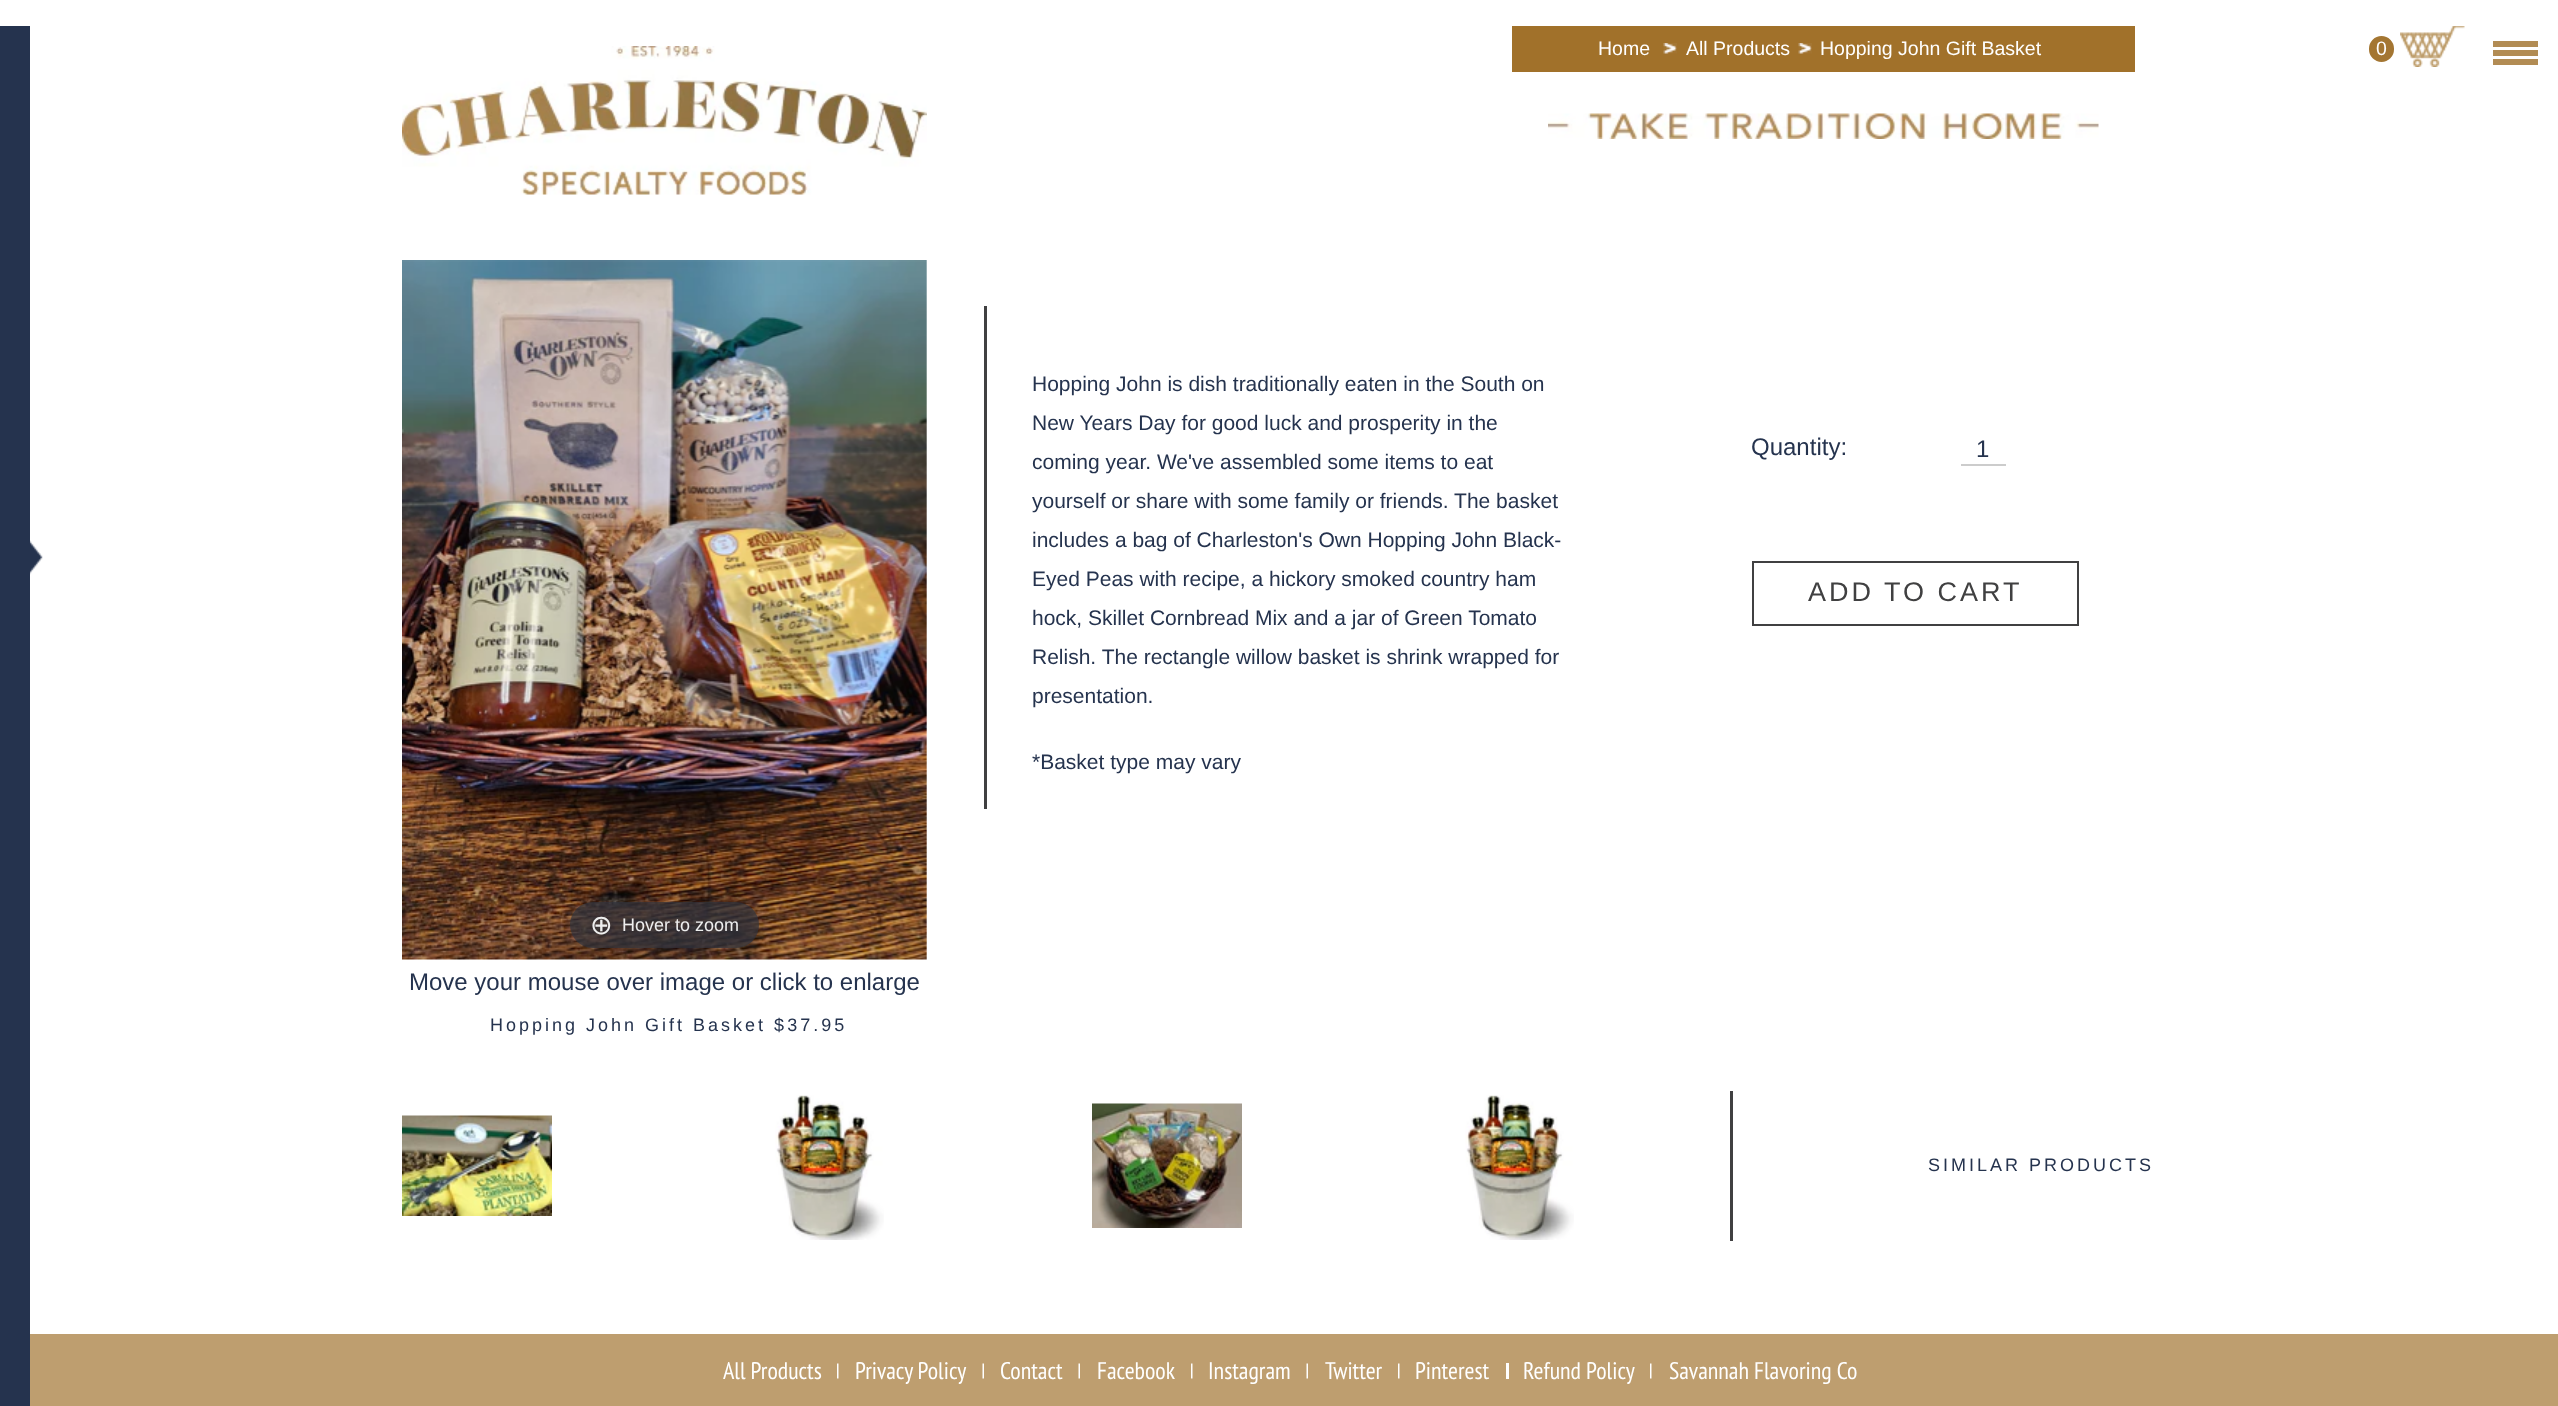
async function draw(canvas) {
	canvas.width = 2558;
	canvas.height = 1406;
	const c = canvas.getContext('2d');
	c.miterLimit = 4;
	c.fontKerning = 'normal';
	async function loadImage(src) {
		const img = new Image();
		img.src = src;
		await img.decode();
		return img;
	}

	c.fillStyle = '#fff';
	c.fillRect(0, 0, 2558, 1406);
	c.fillStyle = '#25334e';
	c.fillRect(0, 26, 30, 1380);
	c.drawImage(await loadImage('img1.png'), 30, 540, 13, 35);
	c.drawImage(await loadImage('img2.png'), 402, 46, 525, 149);
	c.fillStyle = '#a1712a';
	c.fillRect(1512, 26, 623, 46);
	c.font = '19.5px Liberation Sans';
	c.fillStyle = '#fff';
	c.fillText('Home', 1598, 55);
	c.drawImage(await loadImage('img3.png'), 1663, 43, 14, 11);
	c.fillText('All Products', 1686, 55);
	c.drawImage(await loadImage('img3.png'), 1798, 43, 14, 11);
	c.fillText('Hopping John Gift Basket', 1820, 55);
	c.drawImage(await loadImage('img4.png'), 1548, 113, 551, 26);
	c.fillStyle = '#404041';
	c.fillRect(984, 306, 3, 503);
	c.font = '21px Liberation Sans';
	c.fillStyle = '#25334e';
	for (const [text, x, y] of [
		['Hopping John is dish traditionally eaten in the South on', 1032, 391],
		['New Years Day for good luck and prosperity in the', 1032, 430],
		['coming year. We\'ve assembled some items to eat', 1032, 469],
		['yourself or share with some family or friends. The basket', 1032, 508],
		['includes a bag of Charleston\'s Own Hopping John Black-', 1032, 547],
		['Eyed Peas with recipe, a hickory smoked country ham', 1032, 586],
		['hock, Skillet Cornbread Mix and a jar of Green Tomato', 1032, 625],
		['Relish. The rectangle willow basket is shrink wrapped for', 1032, 664],
		['presentation.', 1032, 703],
		['*Basket type may vary', 1032, 769],
	]) {
		c.fillText(text, x, y);
	}
	c.font = '24px Liberation Sans';
	c.fillText('Quantity:', 1751, 455);
	c.fillStyle = '#ccc';
	c.fillRect(1961, 464, 45, 2);
	c.fillStyle = '#25334e';
	c.fillText('1', 1976, 457);
	c.strokeStyle = '#404041';
	c.lineWidth = 2;
	c.strokeRect(1753, 562, 325, 63);
	c.letterSpacing = '3px';
	c.font = '27px Liberation Sans';
	c.fillStyle = '#404041';
	c.fillText('ADD TO CART', 1808, 601);
	c.drawImage(await loadImage('img5.png'), 402, 260, 525, 700);
	c.fillStyle = '#31333db3';
	c.beginPath();
	c.roundRect(570, 902, 189, 46, 23);
	c.fill();
	c.letterSpacing = '0px';
	c.font = '27px DejaVu Sans';
	c.fillStyle = '#eee';
	c.fillText('⊕', 590, 934);
	c.font = '18px Liberation Sans';
	c.fillText('Hover to zoom', 622, 931);
	c.font = '24px Liberation Sans';
	c.fillStyle = '#25334e';
	c.fillText('Move your mouse over image or click to enlarge', 409, 990);
	c.letterSpacing = '3px';
	c.font = '18px Liberation Sans';
	c.fillText('Hopping John Gift Basket $37.95', 490, 1031);
	c.drawImage(await loadImage('img6.png'), 402, 1115, 150, 101);
	c.drawImage(await loadImage('img7.png'), 775, 1095, 109, 145);
	c.drawImage(await loadImage('img8.png'), 1092, 1103, 150, 125);
	c.drawImage(await loadImage('img9.png'), 1465, 1095, 109, 145);
	c.fillStyle = '#404041';
	c.fillRect(1730, 1091, 3, 150);
	c.fillStyle = '#25334e';
	c.fillText('SIMILAR PRODUCTS', 1928, 1171);
	c.drawImage(await loadImage('img10.png'), 2400, 26, 65, 41);
	c.fillStyle = '#a47632';
	c.beginPath();
	c.roundRect(2370, 37, 23, 24, 11.5);
	c.fill();
	c.strokeStyle = '#a47632';
	c.stroke();
	c.letterSpacing = '0px';
	c.font = '19.5px Liberation Sans';
	c.fillStyle = '#fff';
	c.fillText('0', 2376, 55);
	for (const [x, y, w, h, color] of [
		[2493, 41, 45, 6, '#b28c54'],
		[2493, 50, 45, 6, '#b28c54'],
		[2493, 59, 45, 6, '#b28c54'],
		[30, 1334, 2528, 72, '#be9e6f'],
	]) {
		c.fillStyle = color;
		c.fillRect(x, y, w, h);
	}
	c.font = '24px PT Sans Narrow';
	c.fillStyle = '#fff';
	c.fillText('All Products', 723, 1379);
	c.drawImage(await loadImage('img11.png'), 837, 1363, 2, 16);
	c.fillText('Privacy Policy', 855, 1379);
	c.drawImage(await loadImage('img12.png'), 982, 1363, 2, 16);
	c.fillText('Contact', 1000, 1379);
	c.drawImage(await loadImage('img12.png'), 1078, 1363, 2, 16);
	c.fillText('Facebook', 1097, 1379);
	c.drawImage(await loadImage('img11.png'), 1191, 1363, 2, 16);
	c.fillText('Instagram', 1208, 1379);
	c.drawImage(await loadImage('img12.png'), 1306, 1363, 2, 16);
	c.fillText('Twitter', 1325, 1379);
	c.drawImage(await loadImage('img11.png'), 1398, 1363, 2, 16);
	c.fillText('Pinterest', 1415, 1379);
	c.fillRect(1506, 1363, 3, 16);
	c.fillText('Refund Policy', 1523, 1379);
	c.drawImage(await loadImage('img11.png'), 1650, 1363, 2, 16);
	c.fillText('Savannah Flavoring Co', 1669, 1379);
}

draw(document.querySelector('canvas'));
